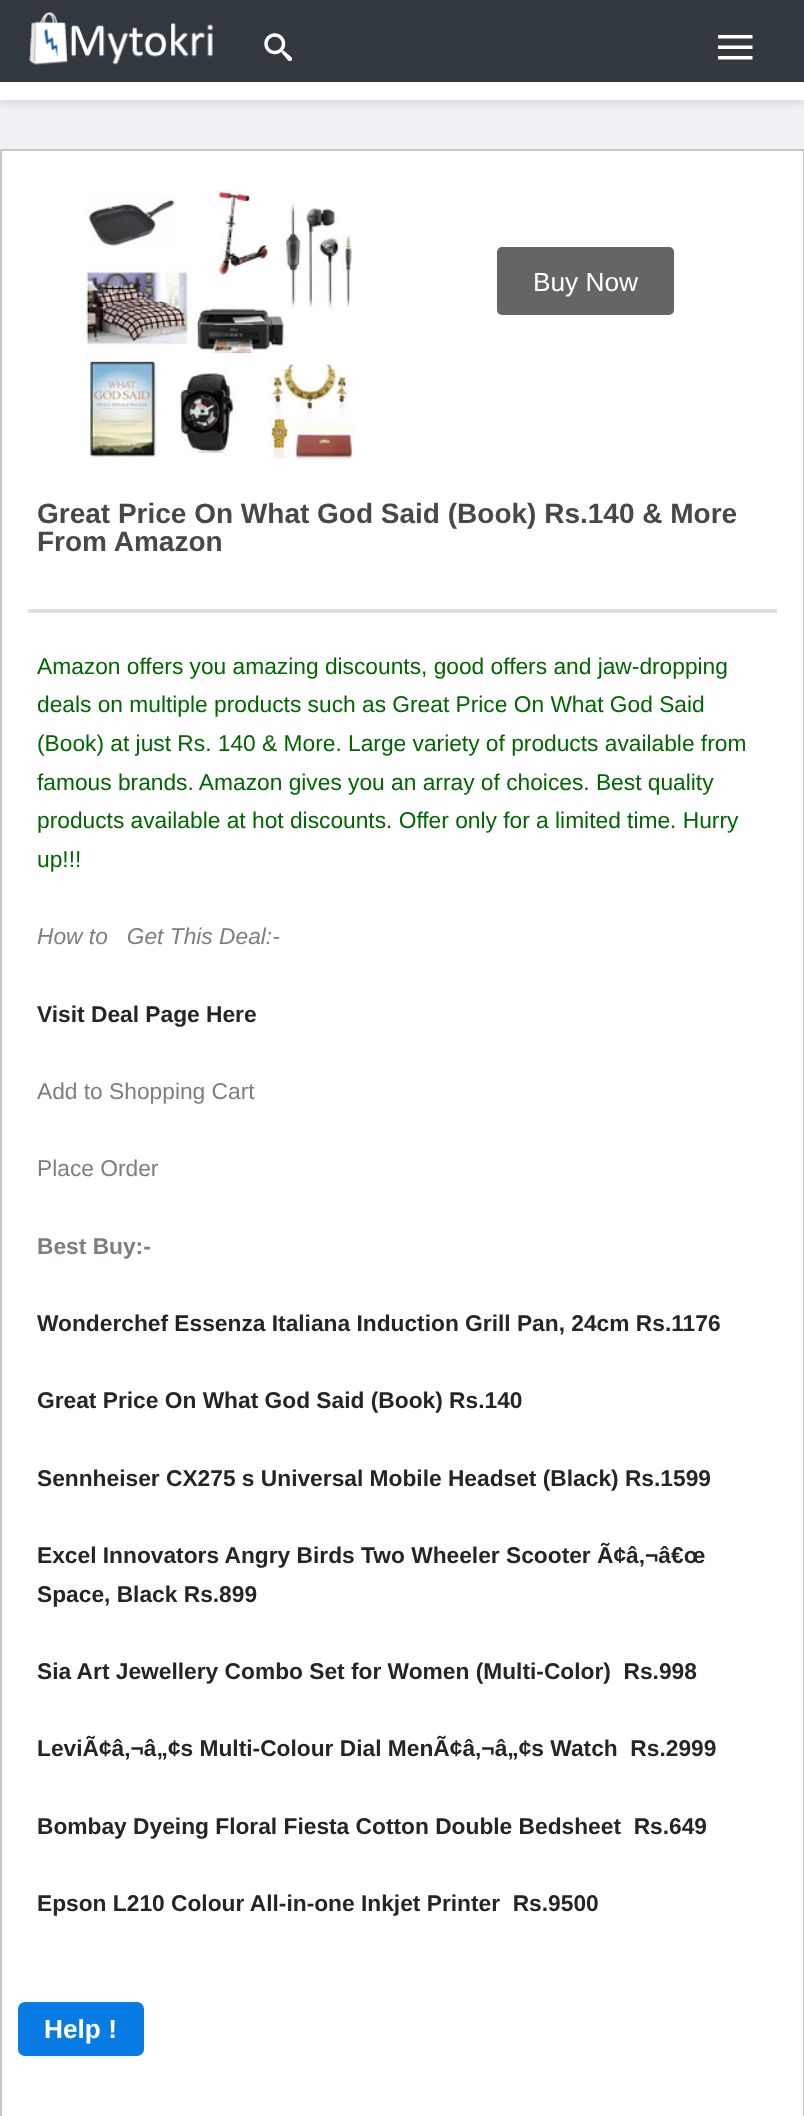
async function draw(canvas) {
	canvas.width = 804;
	canvas.height = 2116;
	const c = canvas.getContext('2d');
	c.miterLimit = 4;
	c.fontKerning = 'normal';
	async function loadImage(src) {
		const img = new Image();
		img.src = src;
		await img.decode();
		return img;
	}

	c.fillStyle = '#eff1f4';
	c.fillRect(0, 0, 804, 2116);
	c.fillStyle = '#0000001a';
	c.filter = 'blur(4.5px)';
	c.beginPath();
	c.rect(0, 4, 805, 99);
	c.fill();
	c.filter = 'none';
	c.fillStyle = '#31393f';
	c.fillRect(0, 0, 804, 82);
	c.drawImage(await loadImage('img1.png'), 29, 12, 184, 54);
	c.drawImage(await loadImage('img2.png'), 264, 33, 28, 28);
	c.save();
	c.beginPath();
	c.rect(718, 30, 35, 35);
	c.clip();
	c.fillStyle = '#fff';
	c.beginPath();
	c.moveTo(717.5, 35);
	c.lineTo(752.5, 35);
	c.lineTo(752.5, 38.5);
	c.lineTo(717.5, 38.5);
	c.closePath();
	c.moveTo(717.5, 45.5);
	c.lineTo(752.5, 45.5);
	c.lineTo(752.5, 49);
	c.lineTo(717.5, 49);
	c.closePath();
	c.moveTo(717.5, 56);
	c.lineTo(752.5, 56);
	c.lineTo(752.5, 59.5);
	c.lineTo(717.5, 59.5);
	c.closePath();
	c.fill();
	c.restore();
	for (const [x, y, w, h, color] of [
		[0, 82, 804, 18, '#fff'],
		[2, 151, 801, 1965, '#fff'],
		[0, 149, 804, 2, '#c7c7c7'],
		[803, 149, 1, 1967, '#c7c7c7'],
		[0, 149, 2, 1967, '#c7c7c7'],
	]) {
		c.fillStyle = color;
		c.fillRect(x, y, w, h);
	}
	c.drawImage(await loadImage('img3.png'), 85, 191, 271, 269);
	c.fillStyle = '#646566';
	c.beginPath();
	c.roundRect(497, 247, 177, 68, 5);
	c.fill();
	c.font = '26.25px Liberation Sans';
	c.fillStyle = '#fff';
	c.fillText('Buy Now', 533, 291);
	c.fillStyle = '#e0e0e0';
	c.fillRect(28, 609, 749, 4);
	c.font = 'bold 28px Liberation Sans';
	c.fillStyle = '#484848';
	c.fillText('Great Price On What God Said (Book) Rs.140 & More', 37, 523);
	c.fillText('From Amazon', 37, 551);
	c.font = '22.75px Liberation Sans';
	c.fillStyle = '#060';
	for (const [text, x, y] of [
		['Amazon offers you amazing discounts, good offers and jaw-dropping', 37, 674],
		['deals on multiple products such as Great Price On What God Said', 37, 712],
		['(Book) at just Rs. 140 & More. Large variety of products available from', 37, 751],
		['famous brands. Amazon gives you an array of choices. Best quality', 37, 790],
		['products available at hot discounts. Offer only for a limited time. Hurry', 37, 828],
		['up!!!', 37, 867],
	]) {
		c.fillText(text, x, y);
	}
	c.font = 'italic 22.75px Liberation Sans';
	c.fillStyle = '#7b7f83';
	c.fillText('How to   Get This Deal:-', 37, 944);
	c.font = 'bold 22.75px Liberation Sans';
	c.fillStyle = '#252525';
	c.fillText('Visit Deal Page Here', 37, 1022);
	c.font = '22.75px Liberation Sans';
	c.fillStyle = '#7b7f83';
	c.fillText('Add to Shopping Cart', 37, 1099);
	c.fillText('Place Order', 37, 1176);
	c.font = 'bold 22.75px Liberation Sans';
	c.fillText('Best Buy:-', 37, 1254);
	c.fillStyle = '#252525';
	for (const [text, x, y] of [
		['Wonderchef Essenza Italiana Induction Grill Pan, 24cm Rs.1176', 37, 1331],
		['Great Price On What God Said (Book) Rs.140', 37, 1408],
		['Sennheiser CX275 s Universal Mobile Headset (Black) Rs.1599', 37, 1486],
		['Excel Innovators Angry Birds Two Wheeler Scooter Ã¢â‚¬â€œ', 37, 1563],
		['Space, Black Rs.899', 37, 1602],
		['Sia Art Jewellery Combo Set for Women (Multi-Color)  Rs.998', 37, 1679],
		['LeviÃ¢â‚¬â„¢s Multi-Colour Dial MenÃ¢â‚¬â„¢s Watch  Rs.2999', 37, 1756],
		['Bombay Dyeing Floral Fiesta Cotton Double Bedsheet  Rs.649', 37, 1834],
		['Epson L210 Colour All-in-one Inkjet Printer  Rs.9500', 37, 1911],
	]) {
		c.fillText(text, x, y);
	}
	c.fillStyle = '#097be5';
	c.beginPath();
	c.roundRect(18, 2002, 126, 54, 7);
	c.fill();
	c.font = 'bold 26.25px Liberation Sans';
	c.fillStyle = '#fff';
	c.fillText('Help !', 44, 2038);
}

draw(document.querySelector('canvas'));
